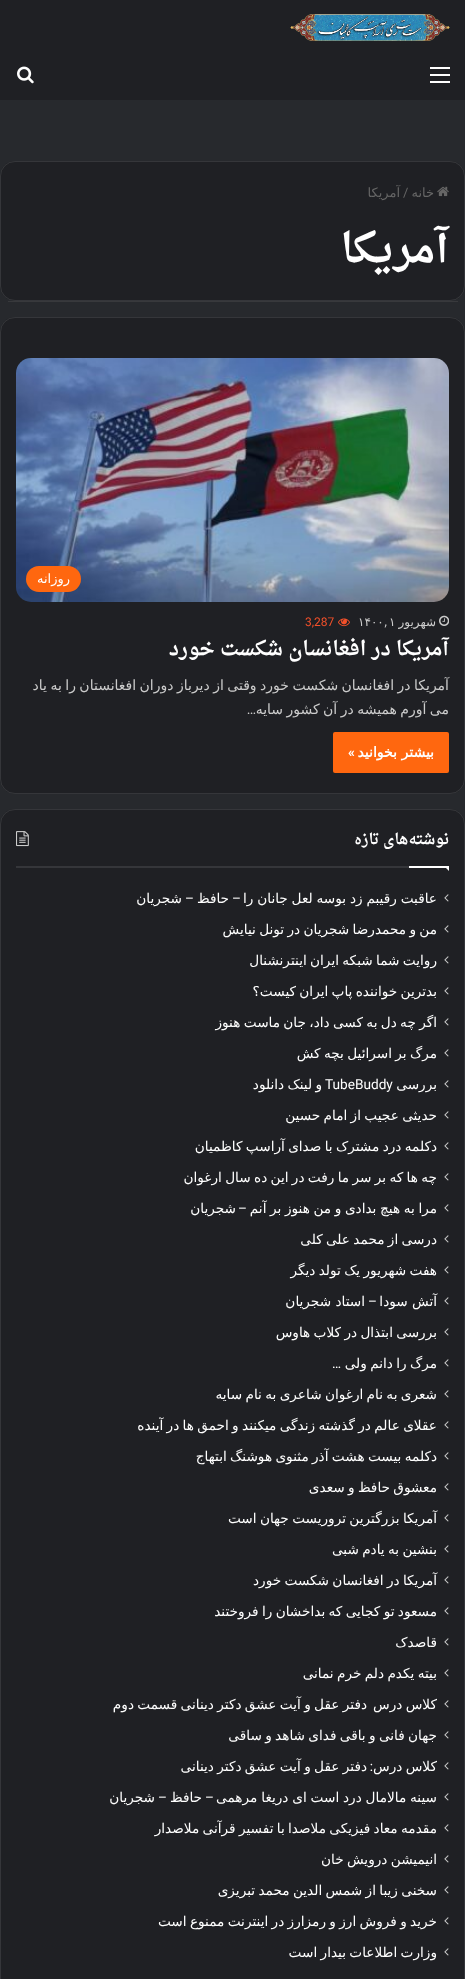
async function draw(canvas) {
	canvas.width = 465;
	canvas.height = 1979;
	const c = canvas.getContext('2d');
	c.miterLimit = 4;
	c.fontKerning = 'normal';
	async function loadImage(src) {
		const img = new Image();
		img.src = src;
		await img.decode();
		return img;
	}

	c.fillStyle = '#27292d';
	c.fillRect(0, 0, 465, 1979);
	c.fillStyle = '#1f2024';
	c.fillRect(0, 0, 465, 100);
	c.drawImage(await loadImage('img1.png'), 290, 14, 160, 27);
	for (const [x, y, w, h, color] of [
		[430, 74, 20, 2, '#fff'],
		[430, 67, 20, 2, '#fff'],
		[430, 81, 20, 2, '#fff'],
	]) {
		c.fillStyle = color;
		c.fillRect(x, y, w, h);
	}
	c.drawImage(await loadImage('img2.png'), 17, 66, 17, 18);
	c.fillStyle = '#1f2024';
	c.beginPath();
	c.roundRect(0, 161, 465, 140, 15);
	c.fill();
	c.beginPath();
	c.roundRect(0.5, 161.5, 464, 139, 14.5);
	c.strokeStyle = '#ffffff1a';
	c.stroke();
	c.drawImage(await loadImage('img3.png'), 437, 186, 12, 11);
	c.direction = 'rtl';
	c.font = '13px DejaVu Sans';
	c.fillStyle = '#666';
	c.fillText('خانه', 434, 197);
	c.direction = 'ltr';
	c.font = '13px Roboto';
	c.fillText('/', 403, 197);
	c.direction = 'rtl';
	c.font = '13px DejaVu Sans';
	c.fillText('آمریکا', 400, 197);
	c.font = 'bold 41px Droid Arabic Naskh';
	c.fillStyle = '#fff';
	c.fillText('آمریکا', 449, 262);
	c.fillStyle = '#38393c';
	c.fillRect(8, 301, 450, 1);
	c.fillStyle = '#1f2024';
	c.beginPath();
	c.roundRect(0, 317, 465, 477, 15);
	c.fill();
	c.beginPath();
	c.roundRect(0.5, 317.5, 464, 476, 14.5);
	c.stroke();
	c.drawImage(await loadImage('img4.png'), 16, 358, 433, 244);
	c.fillStyle = '#ff670f';
	c.beginPath();
	c.roundRect(26, 566, 55, 26, 13);
	c.fill();
	c.font = '13px DejaVu Sans';
	c.fillStyle = '#fff';
	c.fillText('روزانه', 70, 583);
	c.drawImage(await loadImage('img5.png'), 439, 615, 10, 11);
	c.font = '12px DejaVu Sans';
	c.fillStyle = '#ccc';
	c.fillText('شهریور', 436, 626);
	c.direction = 'ltr';
	c.fillText('۱', 389, 626);
	c.fillText('۱۴۰۰,', 358, 626);
	c.drawImage(await loadImage('img6.png'), 338, 618, 12, 9);
	c.font = '12px Roboto';
	c.fillStyle = '#f3502a';
	c.fillText('3,287', 305, 626);
	c.direction = 'rtl';
	c.font = 'bold 20px Droid Arabic Naskh';
	c.fillStyle = '#fff';
	c.fillText('آمریکا در افغانسان شکست خورد', 449, 655);
	c.wordSpacing = '-1px';
	c.font = '14px DejaVu Sans';
	c.fillStyle = '#ccc';
	c.fillText('آمریکا در افغانسان شکست خورد وقتی از دیرباز دوران افغانستان را به یاد', 449, 690);
	c.fillText('می آورم همیشه در آن کشور سایه', 449, 714);
	c.wordSpacing = '0px';
	c.font = '14px Roboto';
	c.fillText('…', 256, 714);
	c.fillStyle = '#ff670f';
	c.beginPath();
	c.roundRect(333, 732, 116, 41, 2);
	c.fill();
	c.font = 'bold 14px DejaVu Sans';
	c.fillStyle = '#fff';
	c.fillText('بیشتر بخوانید', 434, 757);
	c.font = '600 14px Roboto';
	c.fillText('»', 355, 757);
	c.fillStyle = '#1f2024';
	c.beginPath();
	c.roundRect(0, 809, 465, 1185, 15);
	c.fill();
	c.beginPath();
	c.roundRect(0.5, 809.5, 464, 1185, 14.5);
	c.stroke();
	c.fillStyle = '#35363a';
	c.fillRect(16, 866, 393, 2);
	c.font = 'bold 15px Droid Arabic Naskh';
	c.fillStyle = '#fff';
	c.fillText('نوشته‌های تازه', 449, 844);
	c.drawImage(await loadImage('img7.png'), 16, 831, 13, 16);
	c.beginPath();
	c.moveTo(444, 866);
	c.lineTo(449, 866);
	c.lineTo(449, 871);
	c.closePath();
	c.fill();
	c.fillRect(409, 866, 40, 2);
	c.drawImage(await loadImage('img8.png'), 444, 894, 5, 8);
	c.wordSpacing = '-0.5px';
	c.font = '13.65px DejaVu Sans';
	c.fillText('عاقبت رقیبم زد بوسه لعل جانان را', 437, 903);
	c.wordSpacing = '0px';
	c.font = '13.65px Roboto';
	c.fillText('–', 241, 903);
	c.font = '13.65px DejaVu Sans';
	c.fillText('حافظ', 229, 903);
	c.font = '13.65px Roboto';
	c.fillText('–', 194, 903);
	c.font = '13.65px DejaVu Sans';
	c.fillText('شجریان', 182, 903);
	c.drawImage(await loadImage('img8.png'), 444, 925, 5, 8);
	c.wordSpacing = '-1px';
	c.fillText('من و محمدرضا شجریان در تونل نیایش', 437, 934);
	c.drawImage(await loadImage('img8.png'), 444, 956, 5, 8);
	c.fillText('روایت شما شبکه ایران اینترنشنال', 437, 965);
	c.drawImage(await loadImage('img8.png'), 444, 987, 5, 8);
	c.fillText('بدترین خواننده پاپ ایران کیست؟', 437, 996);
	c.drawImage(await loadImage('img8.png'), 444, 1018, 5, 8);
	c.fillText('اگر چه دل به کسی داد، جان ماست هنوز', 437, 1027);
	c.drawImage(await loadImage('img8.png'), 444, 1049, 5, 8);
	c.fillText('مرگ بر اسرائیل بچه کش', 437, 1058);
	c.drawImage(await loadImage('img8.png'), 444, 1080, 5, 8);
	c.wordSpacing = '0px';
	c.fillText('بررسی', 437, 1089);
	c.direction = 'ltr';
	c.font = '13.65px Roboto';
	c.fillText('TubeBuddy', 325, 1089);
	c.wordSpacing = '-1px';
	c.direction = 'rtl';
	c.font = '13.65px DejaVu Sans';
	c.fillText('و لینک دانلود', 322, 1089);
	c.drawImage(await loadImage('img8.png'), 444, 1111, 5, 8);
	c.fillText('حدیثی عجیب از امام حسین', 437, 1120);
	c.drawImage(await loadImage('img8.png'), 444, 1142, 5, 8);
	c.fillText('دکلمه درد مشترک با صدای آراسپ کاظمیان', 437, 1151);
	c.drawImage(await loadImage('img8.png'), 444, 1173, 5, 8);
	c.fillText('چه ها که بر سر ما رفت در این ده سال ارغوان', 437, 1182);
	c.drawImage(await loadImage('img8.png'), 444, 1204, 5, 8);
	c.wordSpacing = '-0.75px';
	c.fillText('مرا به هیچ بدادی و من هنوز بر آنم', 437, 1213);
	c.wordSpacing = '0px';
	c.font = '13.65px Roboto';
	c.fillText('–', 247, 1213);
	c.font = '13.65px DejaVu Sans';
	c.fillText('شجریان', 236, 1213);
	c.drawImage(await loadImage('img8.png'), 444, 1235, 5, 8);
	c.wordSpacing = '-1px';
	c.fillText('درسی از محمد علی کلی', 437, 1244);
	c.drawImage(await loadImage('img8.png'), 444, 1266, 5, 8);
	c.fillText('هفت شهریور یک تولد دیگر', 437, 1275);
	c.drawImage(await loadImage('img8.png'), 444, 1297, 5, 8);
	c.wordSpacing = '0px';
	c.fillText('آتش سودا', 437, 1306);
	c.font = '13.65px Roboto';
	c.fillText('–', 377, 1306);
	c.font = '13.65px DejaVu Sans';
	c.fillText('استاد شجریان', 365, 1306);
	c.drawImage(await loadImage('img8.png'), 444, 1328, 5, 8);
	c.wordSpacing = '-1px';
	c.fillText('بررسی ابتذال در کلاب هاوس', 437, 1337);
	c.drawImage(await loadImage('img8.png'), 444, 1359, 5, 8);
	c.fillText('مرگ را دانم ولی', 437, 1368);
	c.wordSpacing = '0px';
	c.font = '13.65px Roboto';
	c.fillText('…', 341, 1368);
	c.drawImage(await loadImage('img8.png'), 444, 1390, 5, 8);
	c.wordSpacing = '-1px';
	c.font = '13.65px DejaVu Sans';
	c.fillText('شعری به نام ارغوان شاعری به نام سایه', 437, 1399);
	c.drawImage(await loadImage('img8.png'), 444, 1421, 5, 8);
	c.fillText('عقلای عالم در گذشته زندگی میکنند و احمق ها در آینده', 437, 1430);
	c.drawImage(await loadImage('img8.png'), 444, 1452, 5, 8);
	c.fillText('دکلمه بیست هشت آذر مثنوی هوشنگ ابتهاج', 437, 1461);
	c.drawImage(await loadImage('img8.png'), 444, 1483, 5, 8);
	c.fillText('معشوق حافظ و سعدی', 437, 1492);
	c.drawImage(await loadImage('img8.png'), 444, 1514, 5, 8);
	c.fillText('آمریکا بزرگترین تروریست جهان است', 437, 1523);
	c.drawImage(await loadImage('img8.png'), 444, 1545, 5, 8);
	c.fillText('بنشین به یادم شبی', 437, 1554);
	c.drawImage(await loadImage('img8.png'), 444, 1576, 5, 8);
	c.fillText('آمریکا در افغانسان شکست خورد', 437, 1585);
	c.drawImage(await loadImage('img8.png'), 444, 1607, 5, 8);
	c.fillText('مسعود تو کجایی که بداخشان را فروختند', 437, 1616);
	c.drawImage(await loadImage('img8.png'), 444, 1638, 5, 8);
	c.wordSpacing = '0px';
	c.fillText('قاصدک', 437, 1647);
	c.drawImage(await loadImage('img8.png'), 444, 1669, 5, 8);
	c.wordSpacing = '-1px';
	c.fillText('بیته یکدم دلم خرم نمانی', 437, 1678);
	c.drawImage(await loadImage('img8.png'), 444, 1700, 5, 8);
	c.fillText('دفتر عقل و آیت عشق دکتر دینانی قسمت دوم', 367, 1709);
	c.fillText('کلاس درس', 437, 1709);
	c.drawImage(await loadImage('img8.png'), 444, 1731, 5, 8);
	c.fillText('جهان فانی و باقی فدای شاهد و ساقی', 437, 1740);
	c.drawImage(await loadImage('img8.png'), 444, 1762, 5, 8);
	c.fillText('کلاس درس', 437, 1771);
	c.fillText('دفتر عقل و آیت عشق دکتر دینانی', 367, 1771);
	c.wordSpacing = '0px';
	c.font = '13.65px Roboto';
	c.fillText(':', 373, 1771);
	c.drawImage(await loadImage('img8.png'), 444, 1793, 5, 8);
	c.wordSpacing = '-0.5px';
	c.font = '13.65px DejaVu Sans';
	c.fillText('سینه مالامال درد است ای دریغا مرهمی', 437, 1802);
	c.wordSpacing = '0px';
	c.font = '13.65px Roboto';
	c.fillText('–', 214, 1802);
	c.font = '13.65px DejaVu Sans';
	c.fillText('حافظ', 202, 1802);
	c.font = '13.65px Roboto';
	c.fillText('–', 167, 1802);
	c.font = '13.65px DejaVu Sans';
	c.fillText('شجریان', 155, 1802);
	c.drawImage(await loadImage('img8.png'), 444, 1824, 5, 8);
	c.wordSpacing = '-1px';
	c.fillText('مقدمه معاد فیزیکی ملاصدا با تفسیر قرآنی ملاصدار', 437, 1833);
	c.drawImage(await loadImage('img8.png'), 444, 1855, 5, 8);
	c.fillText('انیمیشن درویش خان', 437, 1864);
	c.drawImage(await loadImage('img8.png'), 444, 1886, 5, 8);
	c.fillText('سخنی زیبا از شمس الدین محمد تبریزی', 437, 1895);
	c.drawImage(await loadImage('img8.png'), 444, 1917, 5, 8);
	c.fillText('خرید و فروش ارز و رمزارز در اینترنت ممنوع است', 437, 1926);
	c.drawImage(await loadImage('img8.png'), 444, 1948, 5, 8);
	c.fillText('وزارت اطلاعات بیدار است', 437, 1957);
}

draw(document.querySelector('canvas'));
